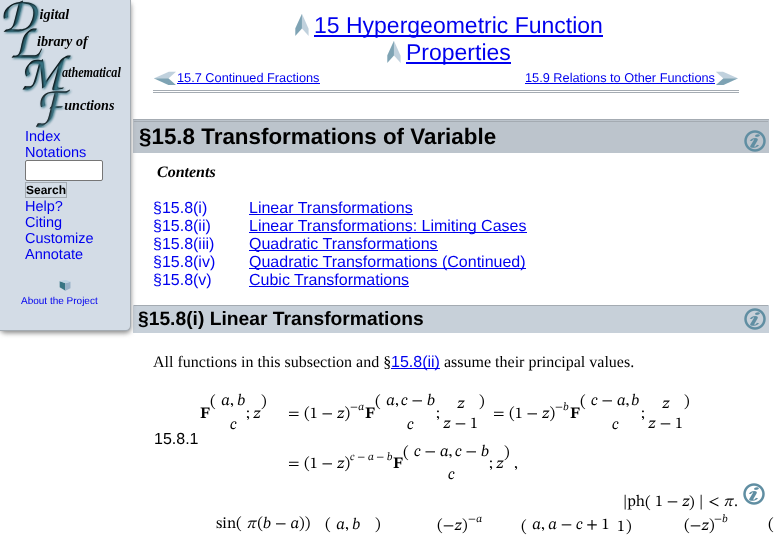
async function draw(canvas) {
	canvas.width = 774;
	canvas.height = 536;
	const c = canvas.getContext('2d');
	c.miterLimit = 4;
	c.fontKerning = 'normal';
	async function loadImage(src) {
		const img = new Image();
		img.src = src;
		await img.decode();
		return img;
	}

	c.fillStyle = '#fff';
	c.fillRect(0, 0, 774, 536);
	for (const [x, y, w, h, color] of [
		[133, 120, 636, 33, '#bcc4cc'],
		[133, 119, 636, 1, '#a4abb2'],
		[133, 121, 636, 1, '#a4abb2'],
	]) {
		c.fillStyle = color;
		c.fillRect(x, y, w, h);
	}
	c.fillStyle = '#bcc4cc';
	c.beginPath();
	c.moveTo(133, 153);
	c.lineTo(133, 119);
	c.lineTo(134, 122);
	c.lineTo(134, 152);
	c.closePath();
	c.fill();
	for (const [x, y, w, h, color] of [
		[134, 306, 634, 27, '#c7d0d9'],
		[133, 305, 636, 1, '#a4abb2'],
		[133, 305, 1, 28, '#c7d0d9'],
	]) {
		c.fillStyle = color;
		c.fillRect(x, y, w, h);
	}
	c.fillStyle = '#888';
	c.filter = 'blur(2.5px)';
	c.beginPath();
	c.roundRect(0, 2, 131, 331, 5);
	c.fill();
	c.filter = 'none';
	c.fillStyle = '#d3dce6';
	c.beginPath();
	c.roundRect(0, 0, 131, 331, [0, 0, 5, 0]);
	c.fill();
	c.fillStyle = '#a4abb2';
	c.beginPath();
	c.moveTo(0, 0);
	c.lineTo(131, 0);
	c.lineTo(131, 326);
	c.bezierCurveTo(131, 329, 129, 331, 126, 331);
	c.lineTo(0, 331);
	c.closePath();
	c.moveTo(0, 0);
	c.lineTo(130, 0);
	c.lineTo(130, 326);
	c.bezierCurveTo(130, 328, 128, 330, 126, 330);
	c.lineTo(0, 330);
	c.closePath();
	c.fill('evenodd');
	c.drawImage(await loadImage('img1.png'), 2, 0, 119, 128);
	c.font = '14.5px Liberation Sans';
	c.fillStyle = '#00e';
	c.fillText('Index', 25, 141);
	c.fillText('Notations', 25, 157);
	c.fillStyle = '#fff';
	c.beginPath();
	c.roundRect(25.5, 160.5, 77, 20, 1.5);
	c.fill();
	c.strokeStyle = '#767676';
	c.stroke();
	c.strokeStyle = '#a4abb2';
	c.strokeRect(25.5, 182.5, 41, 15);
	c.font = 'bold 12px Liberation Sans';
	c.fillStyle = '#000';
	c.fillText('Search', 26, 194);
	c.font = '14.5px Liberation Sans';
	c.fillStyle = '#00e';
	for (const [text, x, y] of [
		['Help?', 25, 211],
		['Citing', 25, 227],
		['Customize', 25, 243],
		['Annotate', 25, 259],
	]) {
		c.fillText(text, x, y);
	}
	c.drawImage(await loadImage('img2.png'), 59, 280, 12, 11);
	c.font = '10px Liberation Sans';
	c.fillText('About the Project', 21, 304);
	c.fillStyle = '#a4abb2';
	c.fillRect(153, 90, 586, 1);
	c.fillRect(153, 92, 586, 1);
	c.drawImage(await loadImage('img3.png'), 295, 14, 14, 22);
	c.fillStyle = '#00e';
	c.fillRect(314, 35, 289, 2);
	c.font = '23px Liberation Sans';
	c.fillText('15 Hypergeometric Function', 314, 33);
	c.drawImage(await loadImage('img3.png'), 387, 41, 14, 22);
	c.fillRect(406, 62, 105, 2);
	c.fillText('Properties', 406, 60);
	c.drawImage(await loadImage('img4.png'), 154, 71, 22, 14);
	c.font = '12.75px Liberation Sans';
	c.fillText('15.7 Continued Fractions', 177, 82);
	c.fillRect(177, 83, 143, 1);
	c.fillText('15.9 Relations to Other Functions', 525, 82);
	c.fillRect(525, 83, 190, 1);
	c.drawImage(await loadImage('img5.png'), 716, 71, 22, 14);
	c.fillStyle = '#bcc4cc';
	c.beginPath();
	c.moveTo(769, 119);
	c.lineTo(769, 153);
	c.lineTo(768, 152);
	c.lineTo(768, 122);
	c.closePath();
	c.fill();
	c.font = 'bold 22.4px Liberation Sans';
	c.fillStyle = '#000';
	c.fillText('§15.8 Transformations of Variable', 139, 144);
	c.drawImage(await loadImage('img6.png'), 744, 130, 22, 22);
	c.font = 'italic bold 16px Liberation Serif';
	c.fillText('Contents', 157, 177);
	c.font = '16px Liberation Sans';
	c.fillStyle = '#00e';
	c.fillText('§15.8(i)', 153, 213);
	c.fillText('Linear Transformations', 249, 213);
	c.fillRect(249, 214, 164, 1);
	c.fillText('§15.8(ii)', 153, 231);
	c.fillRect(249, 232, 278, 1);
	c.fillText('Linear Transformations: Limiting Cases', 249, 231);
	c.fillText('§15.8(iii)', 153, 249);
	c.fillRect(249, 250, 189, 1);
	c.fillText('Quadratic Transformations', 249, 249);
	c.fillText('§15.8(iv)', 153, 267);
	c.fillRect(249, 268, 277, 1);
	for (const [text, x, y] of [
		['Quadratic Transformations (Continued)', 249, 267],
		['§15.8(v)', 153, 285],
		['Cubic Transformations', 249, 285],
	]) {
		c.fillText(text, x, y);
	}
	c.fillRect(249, 286, 160, 1);
	c.fillStyle = '#c7d0d9';
	c.fillRect(768, 305, 1, 28);
	c.font = 'bold 19.25px Liberation Sans';
	c.fillStyle = '#000';
	c.fillText('§15.8(i) Linear Transformations', 138, 325);
	c.drawImage(await loadImage('img7.png'), 744, 308, 22, 22);
	c.font = '16px Liberation Serif';
	c.fillText('All functions in this subsection and §', 153, 367);
	c.fillStyle = '#00e';
	c.fillRect(391, 368, 49, 1);
	c.font = '16px Liberation Sans';
	c.fillText('15.8(ii)', 391, 367);
	c.font = '16px Liberation Serif';
	c.fillStyle = '#000';
	c.fillText('assume their principal values.', 444, 367);
	c.font = '16px Liberation Sans';
	c.fillText('15.8.1', 154, 444);
	c.font = '16px STIX Two Math';
	for (const [text, x, y] of [
		['𝐅', 200, 418],
		['(', 210, 406],
		['𝑎,', 221, 405],
		['𝑏', 237, 405],
		['𝑐', 230, 429],
		[')', 261, 406],
		[';', 246, 418],
		['𝑧', 253, 418],
		['=', 288, 418],
		['(1 − 𝑧)', 304, 418],
	]) {
		c.fillText(text, x, y);
	}
	c.font = '11px STIX Two Math';
	c.fillText('−𝑎', 350, 410);
	c.font = '16px STIX Two Math';
	for (const [text, x, y] of [
		['𝐅', 365, 418],
		['(', 375, 406],
		['𝑎,', 386, 405],
		['𝑐 − 𝑏', 401, 405],
		['𝑐', 407, 429],
		[';', 436, 418],
		['𝑧', 457, 408],
		['𝑧 − 1', 443, 428],
		[')', 479, 406],
		['=', 493, 418],
		['(1 − 𝑧)', 509, 418],
	]) {
		c.fillText(text, x, y);
	}
	c.font = '11px STIX Two Math';
	c.fillText('−𝑏', 555, 410);
	c.font = '16px STIX Two Math';
	for (const [text, x, y] of [
		['𝐅', 570, 418],
		['(', 580, 406],
		['𝑐 − 𝑎,', 591, 405],
		['𝑏', 631, 405],
		['𝑐', 612, 429],
		[';', 641, 418],
		['𝑧', 662, 408],
		['𝑧 − 1', 648, 428],
		[')', 684, 406],
		['=', 288, 468],
		['(1 − 𝑧)', 304, 468],
	]) {
		c.fillText(text, x, y);
	}
	c.font = '11px STIX Two Math';
	c.fillText('𝑐 − 𝑎 − 𝑏', 350, 460);
	c.font = '16px STIX Two Math';
	for (const [text, x, y] of [
		['𝐅', 393, 468],
		['(', 403, 457],
		['𝑐 − 𝑎,', 414, 456],
		['𝑐 − 𝑏', 455, 456],
		['𝑐', 448, 479],
		[')', 504, 457],
		[';', 489, 468],
		['𝑧', 496, 468],
		[',', 514, 468],
		['|ph', 623, 506],
		['(', 645, 507],
		['1 − 𝑧', 655, 506],
		[')', 689, 507],
		['|', 699, 506],
		['<', 708, 506],
		['𝜋', 724, 506],
	]) {
		c.fillText(text, x, y);
	}
	c.font = '16px Liberation Serif';
	c.fillText('.', 734, 506);
	c.drawImage(await loadImage('img8.png'), 743, 483, 22, 22);
	c.font = '16px STIX Two Math';
	for (const [text, x, y] of [
		['sin(', 216, 528],
		['𝜋(𝑏 − 𝑎))', 247, 528],
		['(', 325, 529],
		['𝑎,', 336, 529],
		['𝑏', 352, 529],
		[')', 375, 529],
		['(−𝑧)', 437, 530],
	]) {
		c.fillText(text, x, y);
	}
	c.font = '11px STIX Two Math';
	c.fillText('−𝑎', 468, 522);
	c.font = '16px STIX Two Math';
	for (const [text, x, y] of [
		['(', 521, 531],
		['𝑎,', 532, 529],
		['𝑎 − 𝑐 + 1', 548, 529],
		['1', 617, 531],
		[')', 626, 531],
		['(−𝑧)', 684, 530],
	]) {
		c.fillText(text, x, y);
	}
	c.font = '11px STIX Two Math';
	c.fillText('−𝑏', 714, 522);
	c.font = '16px STIX Two Math';
	c.fillText('(', 768, 529);
}

draw(document.querySelector('canvas'));
